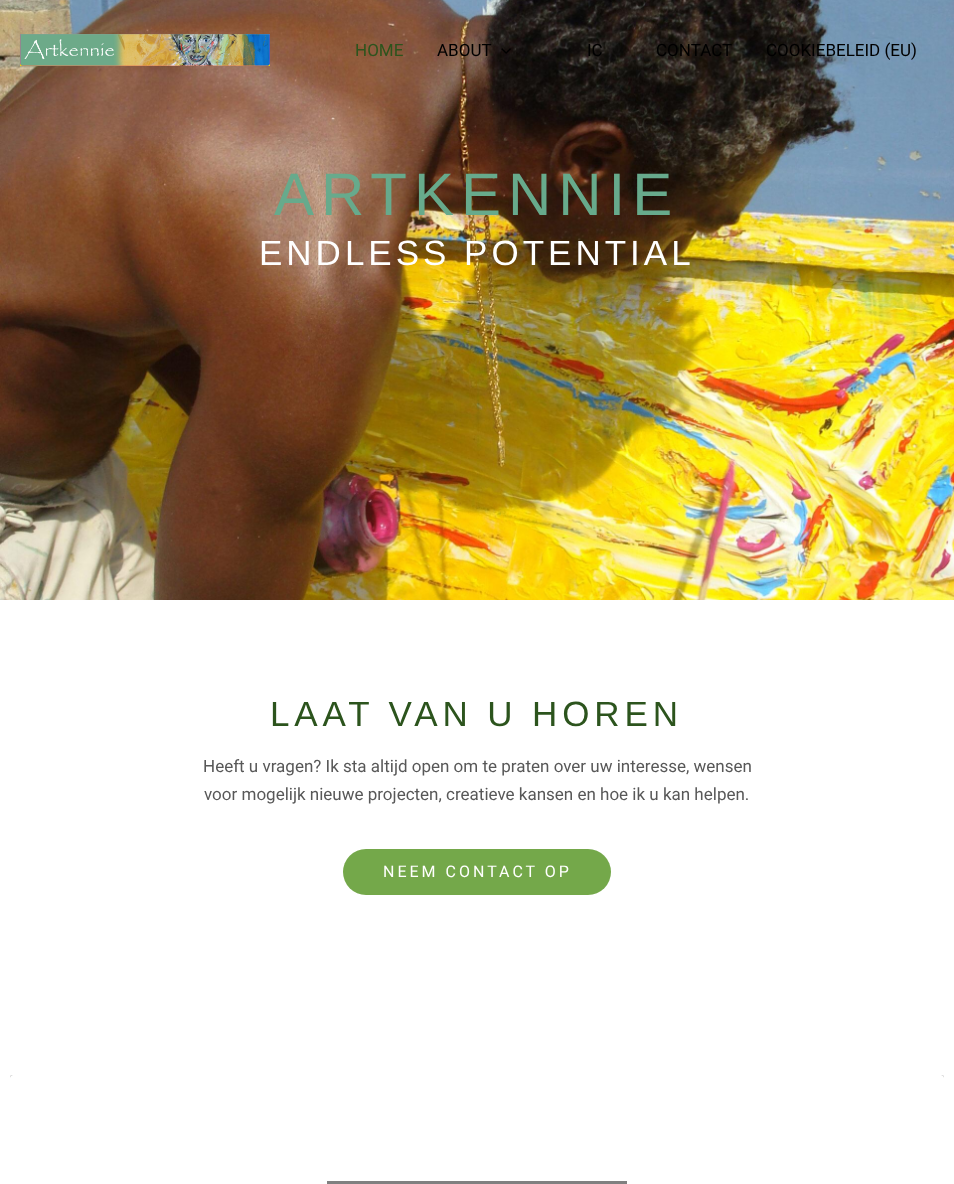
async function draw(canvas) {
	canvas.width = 954;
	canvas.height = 1184;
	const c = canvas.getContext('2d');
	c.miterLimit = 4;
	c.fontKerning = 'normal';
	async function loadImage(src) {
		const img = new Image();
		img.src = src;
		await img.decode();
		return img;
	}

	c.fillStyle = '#fff';
	c.fillRect(0, 0, 954, 1184);
	c.drawImage(await loadImage('img3.png'), 0, 0, 954, 600);
	c.drawImage(await loadImage('img1.png'), 20, 34, 250, 32);
	c.font = '17px Roboto';
	c.fillStyle = '#2c541d';
	c.fillText('HOME', 355, 56);
	c.fillStyle = '#000';
	c.fillText('ABOUT', 437, 56);
	c.drawImage(await loadImage('img2.png'), 501, 48, 10, 6);
	for (const [text, x, y] of [
		['IC', 587, 56],
		['CONTACT', 656, 56],
		['COOKIEBELEID (EU)', 766, 56],
	]) {
		c.fillText(text, x, y);
	}
	c.letterSpacing = '7px';
	c.font = '60px Liberation Sans';
	c.fillStyle = '#67aa8c';
	c.fillText('ARTKENNIE', 274, 215);
	c.letterSpacing = '4px';
	c.font = '35px Liberation Sans';
	c.fillStyle = '#fff';
	c.fillText('ENDLESS POTENTIAL', 259, 265);
	c.letterSpacing = '4.9px';
	c.fillStyle = '#2c541d';
	c.fillText('LAAT VAN U HOREN', 270, 726);
	c.letterSpacing = '0px';
	c.font = '17px Roboto';
	c.fillStyle = '#585858';
	c.fillText('Heeft u vragen? Ik sta altijd open om te praten over uw interesse, wensen', 203, 772);
	c.fillText('voor mogelijk nieuwe projecten, creatieve kansen en hoe ik u kan helpen.', 204, 800);
	c.fillStyle = '#74a84a';
	c.beginPath();
	c.roundRect(343, 849, 268, 46, 23);
	c.fill();
	c.letterSpacing = '3px';
	c.font = '16px Roboto';
	c.fillStyle = '#fff';
	c.fillText('NEEM CONTACT OP', 383, 877);
	c.save();
	c.beginPath();
	c.rect(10, 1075, 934, 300);
	c.clip();
	c.fillStyle = '#00000026';
	c.filter = 'blur(5px)';
	c.beginPath();
	c.roundRect(10, 1076, 934, 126, 3);
	c.fill();
	c.filter = 'none';
	c.restore();
	c.fillStyle = '#00000080';
	c.filter = 'blur(0.5px)';
	c.beginPath();
	c.roundRect(10, 1075, 934, 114, 3);
	c.fill();
	c.filter = 'none';
	c.fillStyle = '#fff';
	c.beginPath();
	c.roundRect(10, 1075, 934, 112, 3);
	c.fill();
	c.fillStyle = '#808080';
	c.fillRect(327, 1181, 300, 3);
}

draw(document.querySelector('canvas'));
